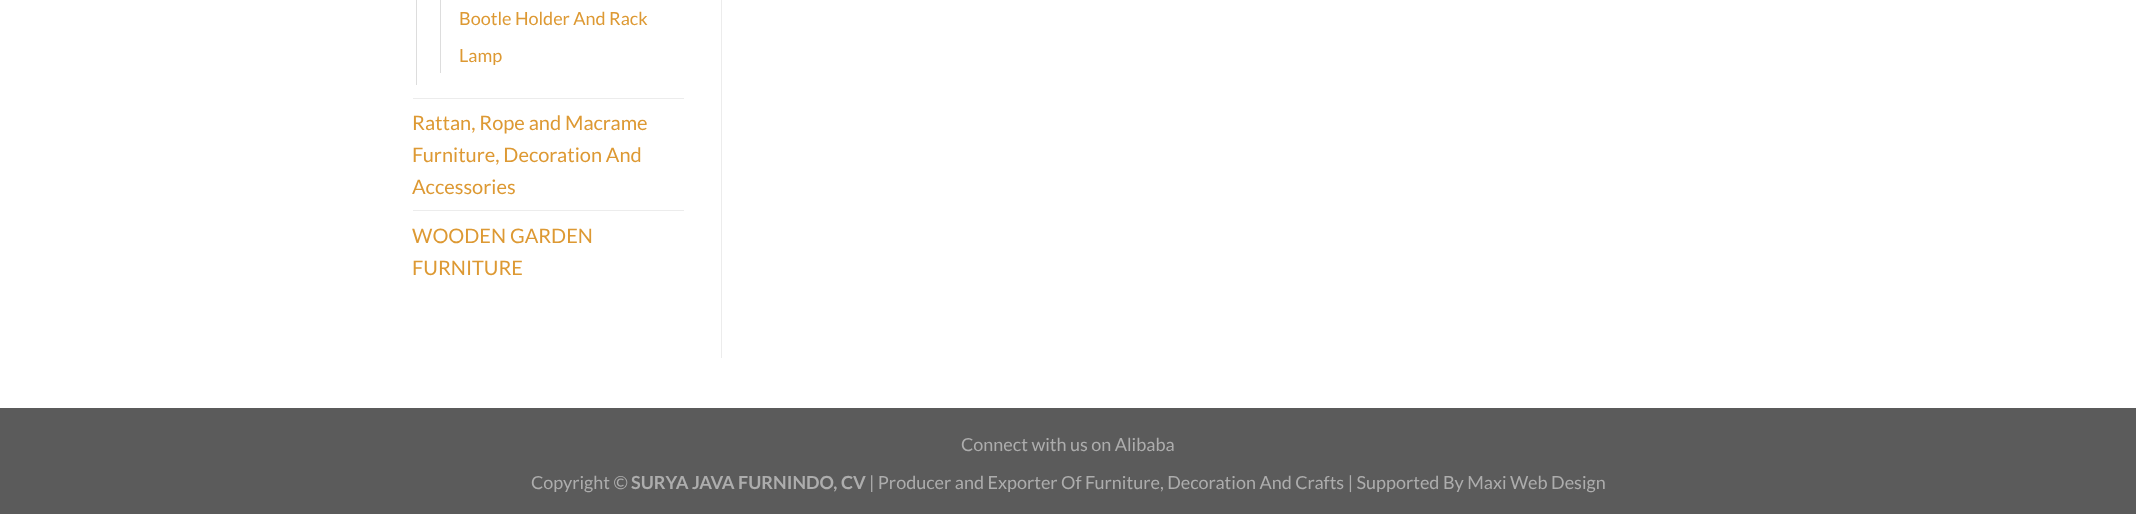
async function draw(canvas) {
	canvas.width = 2136;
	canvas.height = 514;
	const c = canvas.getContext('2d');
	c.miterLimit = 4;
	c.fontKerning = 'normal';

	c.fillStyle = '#fff';
	c.fillRect(0, 0, 2136, 514);
	c.fillStyle = '#ddd';
	c.fillRect(416, 0, 1, 85);
	c.fillRect(440, 0, 1, 73);
	c.font = '18px Lato';
	c.fillStyle = '#d93';
	c.fillText('Bootle Holder And Rack', 459, 25);
	c.fillText('Lamp', 459, 62);
	c.fillStyle = '#ececec';
	c.fillRect(413, 98, 271, 1);
	c.font = '20px Lato';
	c.fillStyle = '#d93';
	for (const [text, x, y] of [
		['Rattan, Rope and Macrame', 412, 130],
		['Furniture, Decoration And', 412, 162],
		['Accessories', 412, 194],
	]) {
		c.fillText(text, x, y);
	}
	c.fillStyle = '#ececec';
	c.fillRect(413, 210, 271, 1);
	c.fillStyle = '#d93';
	c.fillText('WOODEN GARDEN', 412, 243);
	c.fillText('FURNITURE', 412, 275);
	c.fillStyle = '#ececec';
	c.fillRect(721, 0, 1, 358);
	c.fillStyle = '#5b5b5b';
	c.fillRect(0, 408, 2136, 106);
	c.font = '18px Lato';
	c.fillStyle = '#adadad';
	c.fillText('Connect with us on Alibaba', 961, 451);
	c.fillText('Copyright ©', 531, 489);
	c.font = 'bold 18px Lato';
	c.fillText('SURYA JAVA FURNINDO, CV', 631, 489);
	c.font = '18px Lato';
	c.fillText('| Producer and Exporter Of Furniture, Decoration And Crafts | Supported By Maxi Web Design', 869, 489);
}

draw(document.querySelector('canvas'));
